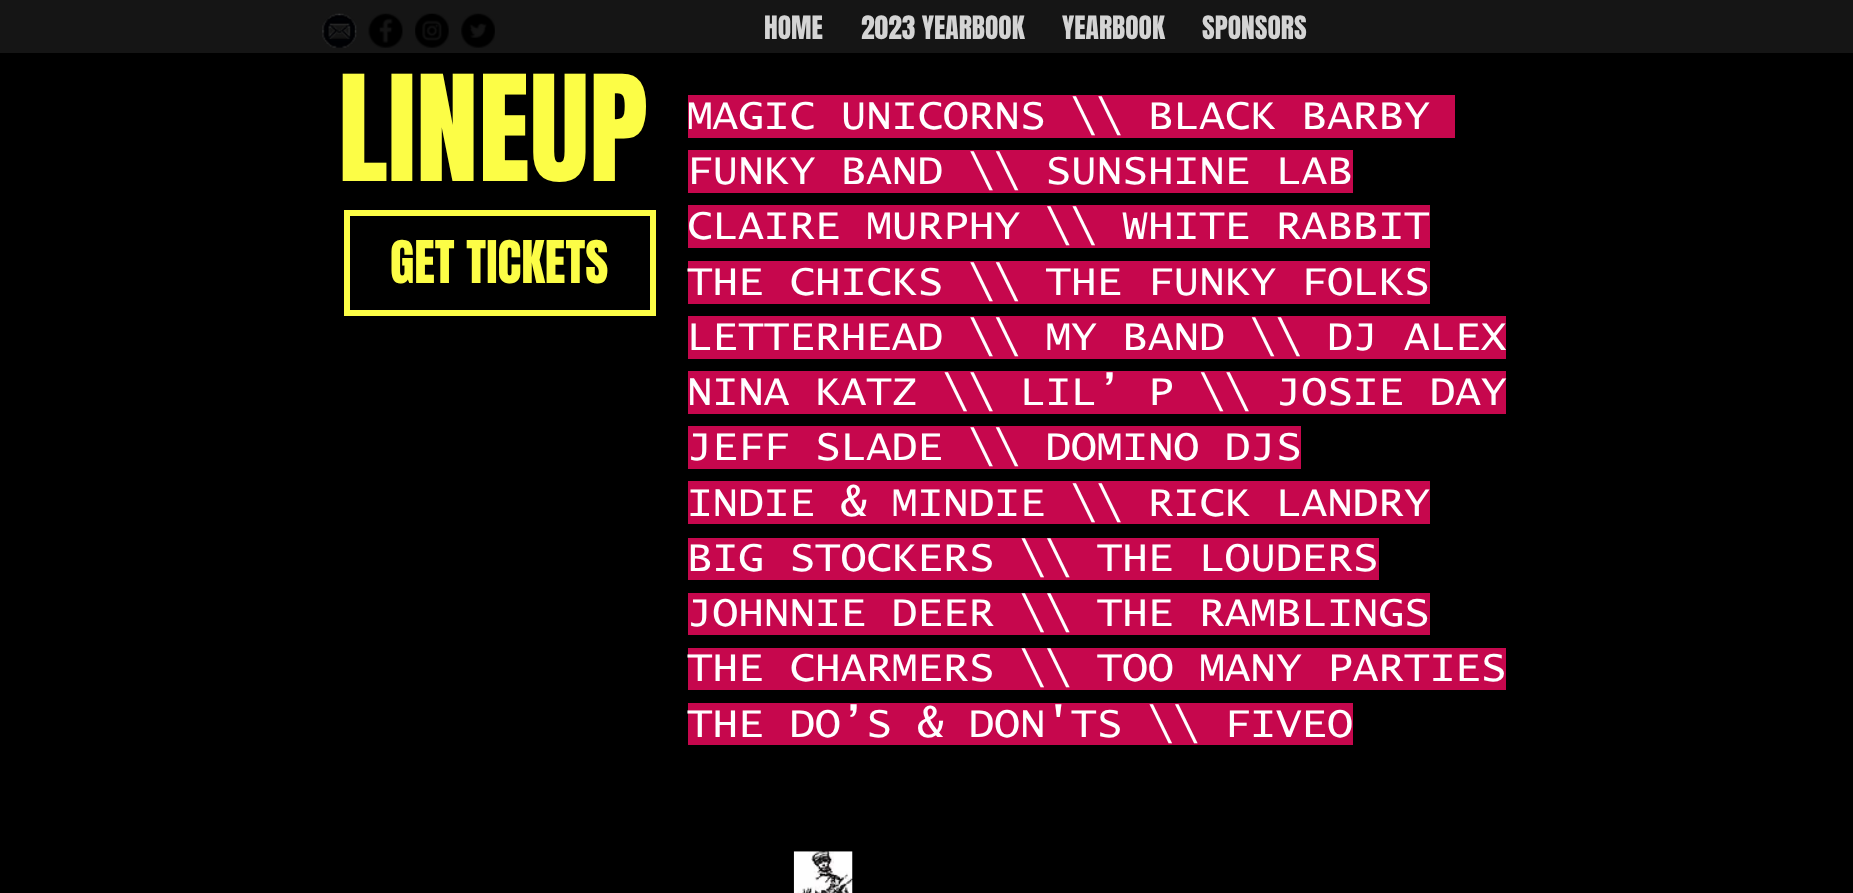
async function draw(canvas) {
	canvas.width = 1853;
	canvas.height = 893;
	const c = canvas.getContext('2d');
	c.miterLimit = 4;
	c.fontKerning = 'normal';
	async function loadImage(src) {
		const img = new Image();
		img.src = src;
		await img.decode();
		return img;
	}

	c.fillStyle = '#000';
	c.fillRect(0, 0, 1853, 893);
	c.fillStyle = '#151515';
	c.fillRect(0, 0, 1853, 53);
	c.drawImage(await loadImage('img1.png'), 322, 13, 35, 35);
	c.drawImage(await loadImage('img2.png'), 368, 13, 35, 35);
	c.drawImage(await loadImage('img3.png'), 415, 13, 34, 35);
	c.drawImage(await loadImage('img4.png'), 461, 13, 34, 35);
	c.font = '27.5px Anton';
	c.fillStyle = '#d4d4d4';
	for (const [text, x, y] of [
		['HOME', 764, 39],
		['2023 YEARBOOK', 861, 39],
		['YEARBOOK', 1062, 39],
		['SPONSORS', 1202, 39],
	]) {
		c.fillText(text, x, y);
	}
	c.font = '125px Anton';
	c.fillStyle = '#fcfd46';
	c.fillText('LINEUP', 338, 181);
	c.fillStyle = '#c6074d';
	c.fillRect(688, 95, 767, 43);
	c.font = '42.5px "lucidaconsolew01"';
	c.fillStyle = '#fff';
	c.fillText('MAGIC UNICORNS \\\\ BLACK BARBY', 687, 129);
	c.fillStyle = '#c6074d';
	c.fillRect(688, 150, 665, 43);
	c.fillStyle = '#fff';
	c.fillText('FUNKY BAND \\\\ SUNSHINE LAB', 687, 184);
	c.fillStyle = '#c6074d';
	c.fillRect(688, 205, 742, 43);
	c.fillStyle = '#fff';
	c.fillText('CLAIRE MURPHY \\\\ WHITE RABBIT', 687, 239);
	c.fillStyle = '#c6074d';
	c.fillRect(688, 261, 742, 43);
	c.fillStyle = '#fff';
	c.fillText('THE CHICKS \\\\ THE FUNKY FOLKS', 687, 295);
	c.fillStyle = '#c6074d';
	c.fillRect(688, 316, 818, 43);
	c.fillStyle = '#fff';
	c.fillText('LETTERHEAD \\\\ MY BAND \\\\ DJ ALEX', 687, 350);
	c.fillStyle = '#c6074d';
	c.fillRect(688, 371, 818, 43);
	c.fillStyle = '#fff';
	c.fillText('NINA KATZ \\\\ LIL’ P \\\\ JOSIE DAY', 687, 405);
	c.fillStyle = '#c6074d';
	c.fillRect(688, 426, 613, 43);
	c.fillStyle = '#fff';
	c.fillText('JEFF SLADE \\\\ DOMINO DJS', 687, 460);
	c.fillStyle = '#c6074d';
	c.fillRect(688, 481, 742, 43);
	c.fillStyle = '#fff';
	c.fillText('INDIE & MINDIE \\\\ RICK LANDRY', 687, 516);
	c.fillStyle = '#c6074d';
	c.fillRect(688, 538, 691, 42);
	c.fillStyle = '#fff';
	c.fillText('BIG STOCKERS \\\\ THE LOUDERS', 687, 571);
	c.fillStyle = '#c6074d';
	c.fillRect(688, 593, 742, 42);
	c.fillStyle = '#fff';
	c.fillText('JOHNNIE DEER \\\\ THE RAMBLINGS', 687, 626);
	c.fillStyle = '#c6074d';
	c.fillRect(688, 648, 818, 42);
	c.fillStyle = '#fff';
	c.fillText('THE CHARMERS \\\\ TOO MANY PARTIES', 687, 681);
	c.fillStyle = '#c6074d';
	c.fillRect(688, 703, 665, 42);
	c.fillStyle = '#fff';
	c.fillText('THE DO’S & DON\'TS \\\\ FIVEO', 687, 737);
	c.strokeStyle = '#fcfd46';
	c.lineWidth = 6;
	c.strokeRect(347, 213, 306, 100);
	c.font = '50px Anton';
	c.fillStyle = '#fcfd46';
	c.fillText('GET TICKETS', 390, 283);
	c.drawImage(await loadImage('img5.png'), 793, 851, 60, 42);
}

draw(document.querySelector('canvas'));
